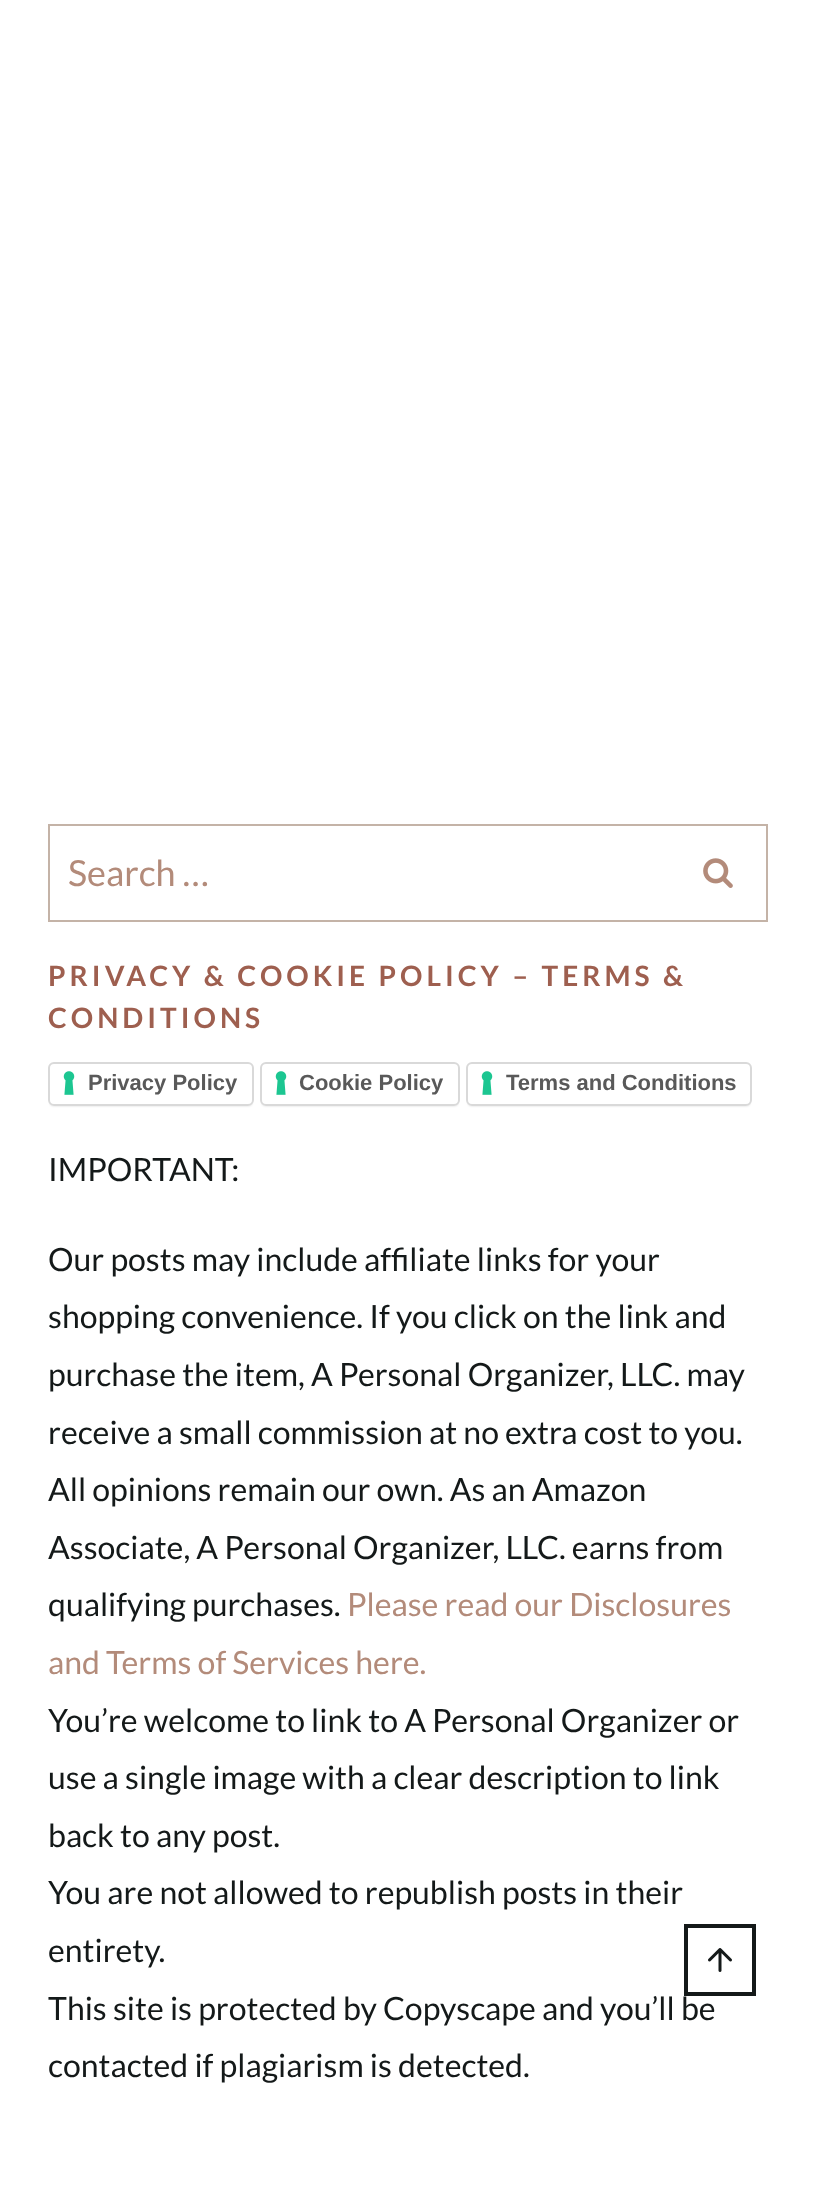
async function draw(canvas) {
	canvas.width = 816;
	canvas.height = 2196;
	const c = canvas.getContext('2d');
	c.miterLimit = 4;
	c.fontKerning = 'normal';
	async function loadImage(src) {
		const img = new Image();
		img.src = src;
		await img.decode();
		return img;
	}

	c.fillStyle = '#fff';
	c.fillRect(0, 0, 816, 2196);
	c.strokeStyle = '#c4b3a7';
	c.lineWidth = 2;
	c.strokeRect(49, 825, 718, 96);
	c.font = '36px Lato';
	c.fillStyle = '#b38b7a';
	c.fillText('Search …', 68, 886);
	c.drawImage(await loadImage('img1.png'), 703, 858, 30, 30);
	c.letterSpacing = '4px';
	c.font = 'bold 28px Lato';
	c.fillStyle = '#9e5f4f';
	c.fillText('PRIVACY & COOKIE POLICY – TERMS &', 48, 986);
	c.fillText('CONDITIONS', 48, 1028);
	c.fillStyle = '#00000026';
	c.filter = 'blur(1px)';
	c.beginPath();
	c.roundRect(50, 1066, 202, 40, 4);
	c.fill();
	c.filter = 'none';
	c.fillStyle = '#fff';
	c.beginPath();
	c.roundRect(48, 1062, 206, 44, 6);
	c.fill();
	c.drawImage(await loadImage('img2.png'), 63, 1071, 12, 24);
	c.beginPath();
	c.roundRect(49, 1063, 204, 42, 5);
	c.strokeStyle = '#d9d9d9';
	c.stroke();
	c.letterSpacing = '0px';
	c.font = 'bold 22px Liberation Sans';
	c.fillStyle = '#595959';
	c.fillText('Privacy Policy', 88, 1090);
	c.fillStyle = '#00000026';
	c.filter = 'blur(1px)';
	c.beginPath();
	c.roundRect(262, 1066, 196, 40, 4);
	c.fill();
	c.filter = 'none';
	c.fillStyle = '#fff';
	c.beginPath();
	c.roundRect(260, 1062, 200, 44, 6);
	c.fill();
	c.drawImage(await loadImage('img2.png'), 275, 1071, 12, 24);
	c.beginPath();
	c.roundRect(261, 1063, 198, 42, 5);
	c.stroke();
	c.fillStyle = '#595959';
	c.fillText('Cookie Policy', 299, 1090);
	c.fillStyle = '#00000026';
	c.filter = 'blur(1px)';
	c.beginPath();
	c.roundRect(468, 1066, 282, 40, 4);
	c.fill();
	c.filter = 'none';
	c.fillStyle = '#fff';
	c.beginPath();
	c.roundRect(466, 1062, 286, 44, 6);
	c.fill();
	c.drawImage(await loadImage('img2.png'), 481, 1071, 12, 24);
	c.beginPath();
	c.roundRect(467, 1063, 284, 42, 5);
	c.stroke();
	c.fillStyle = '#595959';
	c.fillText('Terms and Conditions', 506, 1090);
	c.font = '32px Lato';
	c.fillStyle = '#141919';
	for (const [text, x, y] of [
		['IMPORTANT:', 48, 1181],
		['Our posts may include affiliate links for your', 48, 1271],
		['shopping convenience. If you click on the link and', 48, 1328],
		['purchase the item, A Personal Organizer, LLC. may', 48, 1386],
		['receive a small commission at no extra cost to you.', 48, 1444],
		['All opinions remain our own. As an Amazon', 48, 1501],
		['Associate, A Personal Organizer, LLC. earns from', 48, 1559],
		['qualifying purchases.', 48, 1616],
	]) {
		c.fillText(text, x, y);
	}
	c.fillStyle = '#b38b7a';
	c.fillText('Please read our Disclosures', 347, 1616);
	c.fillText('and Terms of Services here.', 48, 1674);
	c.fillStyle = '#141919';
	for (const [text, x, y] of [
		['You’re welcome to link to A Personal Organizer or', 48, 1732],
		['use a single image with a clear description to link', 48, 1789],
		['back to any post.', 48, 1847],
		['You are not allowed to republish posts in their', 48, 1904],
		['entirety.', 48, 1962],
		['This site is protected by Copyscape and you’ll be', 48, 2020],
		['contacted if plagiarism is detected.', 48, 2077],
	]) {
		c.fillText(text, x, y);
	}
	c.strokeStyle = '#141919';
	c.lineWidth = 4;
	c.strokeRect(686, 1926, 68, 68);
	c.drawImage(await loadImage('img3.png'), 708, 1948, 24, 24);
}

draw(document.querySelector('canvas'));
